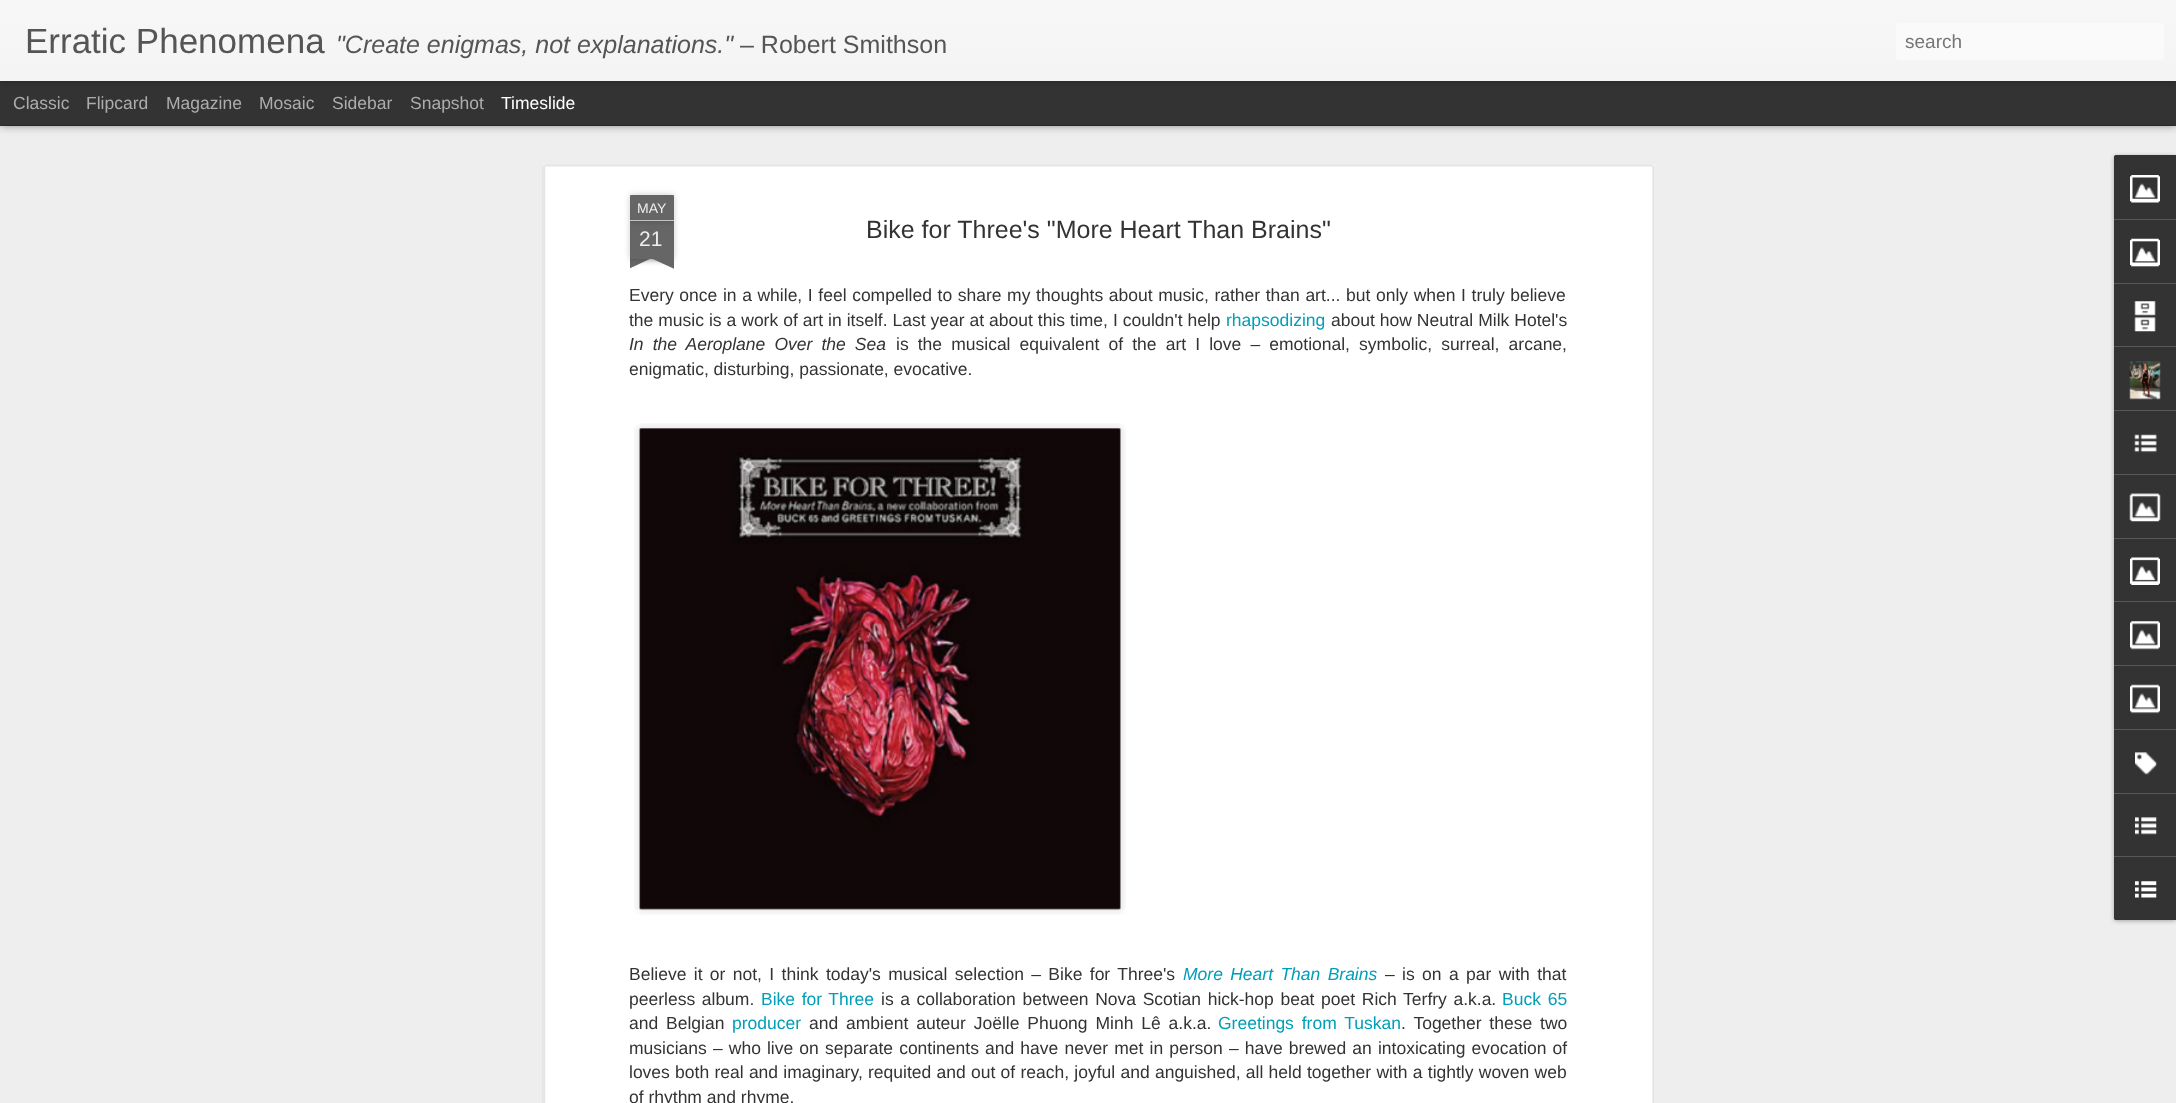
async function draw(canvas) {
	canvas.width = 2176;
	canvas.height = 1103;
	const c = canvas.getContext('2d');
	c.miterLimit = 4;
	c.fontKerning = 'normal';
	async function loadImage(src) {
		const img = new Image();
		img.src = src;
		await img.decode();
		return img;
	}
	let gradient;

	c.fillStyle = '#333';
	c.fillRect(0, 0, 2176, 1103);
	c.fillStyle = '#eee';
	c.fillRect(0, 126, 2176, 977);
	c.fillStyle = '#00000080';
	c.filter = 'blur(5px)';
	c.beginPath();
	c.rect(0, 81, 2176, 44);
	c.fill();
	c.filter = 'none';
	c.fillStyle = '#333';
	c.fillRect(0, 81, 2176, 44);
	c.fillStyle = '#0000004d';
	c.filter = 'blur(3px)';
	c.beginPath();
	c.rect(0, 0, 2176, 81);
	c.fill();
	c.filter = 'none';
	gradient = c.createLinearGradient(0, 0, 0, 81);
	gradient.addColorStop(0, '#f7f7f7');
	gradient.addColorStop(1, '#f4f4f4');
	c.fillStyle = gradient;
	c.fillRect(0, 0, 2176, 81);
	c.font = '35px Liberation Sans';
	c.fillStyle = '#555';
	c.fillText('Erratic Phenomena', 25, 53);
	c.font = 'italic 25px Liberation Sans';
	c.fillText('"Create enigmas, not explanations."', 336, 53);
	c.font = '25px Liberation Sans';
	c.fillText('– Robert Smithson', 740, 53);
	c.fillStyle = '#fafafa';
	c.beginPath();
	c.roundRect(1896, 23, 268, 37, 4);
	c.fill();
	c.font = '19px Liberation Sans';
	c.fillStyle = '#757575';
	c.fillText('search', 1905, 48);
	c.font = '17.5px Liberation Sans';
	c.fillStyle = '#adadad';
	for (const [text, x, y] of [
		['Classic', 13, 109],
		['Flipcard', 86, 109],
		['Magazine', 166, 109],
		['Mosaic', 259, 109],
		['Sidebar', 332, 109],
		['Snapshot', 410, 109],
	]) {
		c.fillText(text, x, y);
	}
	c.fillStyle = '#fff';
	c.fillText('Timeslide', 501, 109);
	c.fillRect(543, 164, 1112, 939);
	c.drawImage(await loadImage('img1.png'), 542, 164, 1113, 939);
	c.fillStyle = '#00000033';
	c.filter = 'blur(3px)';
	c.beginPath();
	c.rect(630, 221, 44, 38);
	c.fill();
	c.filter = 'none';
	c.fillStyle = '#666';
	c.fillRect(630, 221, 44, 38);
	c.fillStyle = '#00000033';
	c.filter = 'blur(3px)';
	c.beginPath();
	c.roundRect(630, 195, 44, 26, 1);
	c.fill();
	c.filter = 'none';
	c.fillStyle = '#666';
	c.beginPath();
	c.roundRect(630, 195, 44, 26, [1, 1, 0, 0]);
	c.fill();
	c.fillStyle = '#c2c2c2';
	c.fillRect(630, 220, 44, 1);
	c.font = '14px Liberation Sans';
	c.fillStyle = '#eee';
	c.fillText('MAY', 637, 213);
	c.font = '21px Liberation Sans';
	c.fillText('21', 639, 246);
	c.save();
	c.beginPath();
	c.rect(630, 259, 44, 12);
	c.clip();
	c.fillStyle = '#00000033';
	c.filter = 'blur(3px)';
	c.beginPath();
	c.rect(619, 246, 62, 13);
	c.fill();
	c.filter = 'none';
	c.restore();
	c.save();
	c.beginPath();
	c.rect(630, 259, 44, 12);
	c.clip();
	c.fillStyle = '#666';
	c.beginPath();
	c.moveTo(618, 260);
	c.lineTo(675, 234);
	c.lineTo(680, 245);
	c.lineTo(624, 271);
	c.closePath();
	c.fill();
	c.restore();
	c.save();
	c.beginPath();
	c.rect(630, 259, 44, 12);
	c.clip();
	c.fillStyle = '#00000033';
	c.filter = 'blur(3px)';
	c.beginPath();
	c.rect(623, 246, 62, 13);
	c.fill();
	c.filter = 'none';
	c.restore();
	c.save();
	c.beginPath();
	c.rect(630, 259, 44, 12);
	c.clip();
	c.fillStyle = '#666';
	c.beginPath();
	c.moveTo(627, 234);
	c.lineTo(684, 260);
	c.lineTo(679, 271);
	c.lineTo(622, 245);
	c.closePath();
	c.fill();
	c.restore();
	c.font = '25px Liberation Sans';
	c.fillStyle = '#333';
	c.fillText('Bike for Three\'s "More Heart Than Brains"', 866, 238);
	c.wordSpacing = '0.75px';
	c.font = '17.5px Liberation Sans';
	c.fillText('Every once in a while, I feel compelled to share my thoughts about music, rather than art... but only when I truly believe', 629, 301);
	c.wordSpacing = '0.1px';
	c.fillText('the music is a work of art in itself. Last year at about this time, I couldn\'t help', 629, 326);
	c.wordSpacing = '0px';
	c.fillStyle = '#009eb8';
	c.fillText('rhapsodizing', 1226, 326);
	c.wordSpacing = '0.1px';
	c.fillStyle = '#333';
	c.fillText('about how Neutral Milk Hotel\'s', 1331, 326);
	c.wordSpacing = '4.25px';
	c.font = 'italic 17.5px Liberation Sans';
	c.fillText('In the Aeroplane Over the Sea', 629, 350);
	c.font = '17.5px Liberation Sans';
	c.fillText('is the musical equivalent of the art I love – emotional, symbolic, surreal, arcane,', 896, 350);
	c.wordSpacing = '0px';
	c.fillText('enigmatic, disturbing, passionate, evocative.', 629, 375);
	c.drawImage(await loadImage('img2.png'), 634, 423, 492, 492);
	c.drawImage(await loadImage('img3.png'), 639, 428, 482, 482);
	c.wordSpacing = '2.5px';
	c.fillText('Believe it or not, I think today\'s musical selection – Bike for Three\'s', 629, 980);
	c.font = 'italic 17.5px Liberation Sans';
	c.fillStyle = '#009eb8';
	c.fillText('More Heart Than Brains', 1183, 980);
	c.font = '17.5px Liberation Sans';
	c.fillStyle = '#333';
	c.fillText('– is on a par with that', 1385, 980);
	c.wordSpacing = '1.75px';
	c.fillText('peerless album.', 629, 1005);
	c.fillStyle = '#009eb8';
	c.fillText('Bike for Three', 761, 1005);
	c.fillStyle = '#333';
	c.fillText('is a collaboration between Nova Scotian hick-hop beat poet Rich Terfry a.k.a.', 881, 1005);
	c.wordSpacing = '2px';
	c.fillStyle = '#009eb8';
	c.fillText('Buck 65', 1502, 1005);
	c.wordSpacing = '3px';
	c.fillStyle = '#333';
	c.fillText('and Belgian', 629, 1029);
	c.wordSpacing = '0px';
	c.fillStyle = '#009eb8';
	c.fillText('producer', 732, 1029);
	c.wordSpacing = '3px';
	c.fillStyle = '#333';
	c.fillText('and ambient auteur Joëlle Phuong Minh Lê a.k.a.', 809, 1029);
	c.fillStyle = '#009eb8';
	c.fillText('Greetings from Tuskan', 1218, 1029);
	c.fillStyle = '#333';
	c.fillText('. Together these two', 1401, 1029);
	c.wordSpacing = '1.25px';
	c.fillText('musicians – who live on separate continents and have never met in person – have brewed an intoxicating evocation of', 629, 1054);
	c.wordSpacing = '0.4px';
	c.fillText('loves both real and imaginary, requited and out of reach, joyful and anguished, all held together with a tightly woven web', 629, 1078);
	c.wordSpacing = '0px';
	c.fillText('of rhythm and rhyme.', 629, 1103);
	c.fillStyle = '#0000004d';
	c.filter = 'blur(2px)';
	c.beginPath();
	c.roundRect(2114, 156, 62, 765, 2.5);
	c.fill();
	c.filter = 'none';
	c.fillStyle = '#333';
	c.beginPath();
	c.roundRect(2114, 155, 62, 765, [2.5, 0, 0, 2.5]);
	c.fill();
	c.beginPath();
	c.roundRect(2114, 155, 62, 64, [2.5, 0, 0, 0]);
	c.fill();
	c.drawImage(await loadImage('img4.png'), 2130, 175, 30, 28);
	c.fillStyle = '#585858';
	c.fillRect(2114, 219, 62, 1);
	c.drawImage(await loadImage('img5.png'), 2130, 238, 30, 29);
	c.fillRect(2114, 283, 62, 1);
	c.drawImage(await loadImage('img6.png'), 2134, 301, 22, 31);
	c.fillRect(2114, 346, 62, 1);
	c.drawImage(await loadImage('img7.png'), 2129, 361, 32, 39);
	c.fillRect(2114, 410, 62, 1);
	c.drawImage(await loadImage('img8.png'), 2134, 434, 23, 19);
	c.fillRect(2114, 474, 62, 1);
	c.drawImage(await loadImage('img9.png'), 2129, 493, 32, 29);
	c.fillRect(2114, 538, 62, 1);
	c.drawImage(await loadImage('img10.png'), 2130, 557, 30, 28);
	c.fillRect(2114, 601, 62, 1);
	c.drawImage(await loadImage('img11.png'), 2130, 621, 30, 29);
	c.fillRect(2114, 665, 62, 1);
	c.drawImage(await loadImage('img12.png'), 2130, 684, 30, 30);
	c.fillRect(2114, 729, 62, 1);
	c.drawImage(await loadImage('img13.png'), 2135, 752, 22, 23);
	c.fillRect(2114, 793, 62, 1);
	c.drawImage(await loadImage('img14.png'), 2135, 817, 22, 18);
	c.fillStyle = '#333';
	c.beginPath();
	c.roundRect(2114, 856, 62, 64, [0, 0, 0, 2.5]);
	c.fill();
	c.fillStyle = '#585858';
	c.fillRect(2114, 856, 62, 1);
	c.drawImage(await loadImage('img15.png'), 2135, 881, 22, 17);
}

draw(document.querySelector('canvas'));
